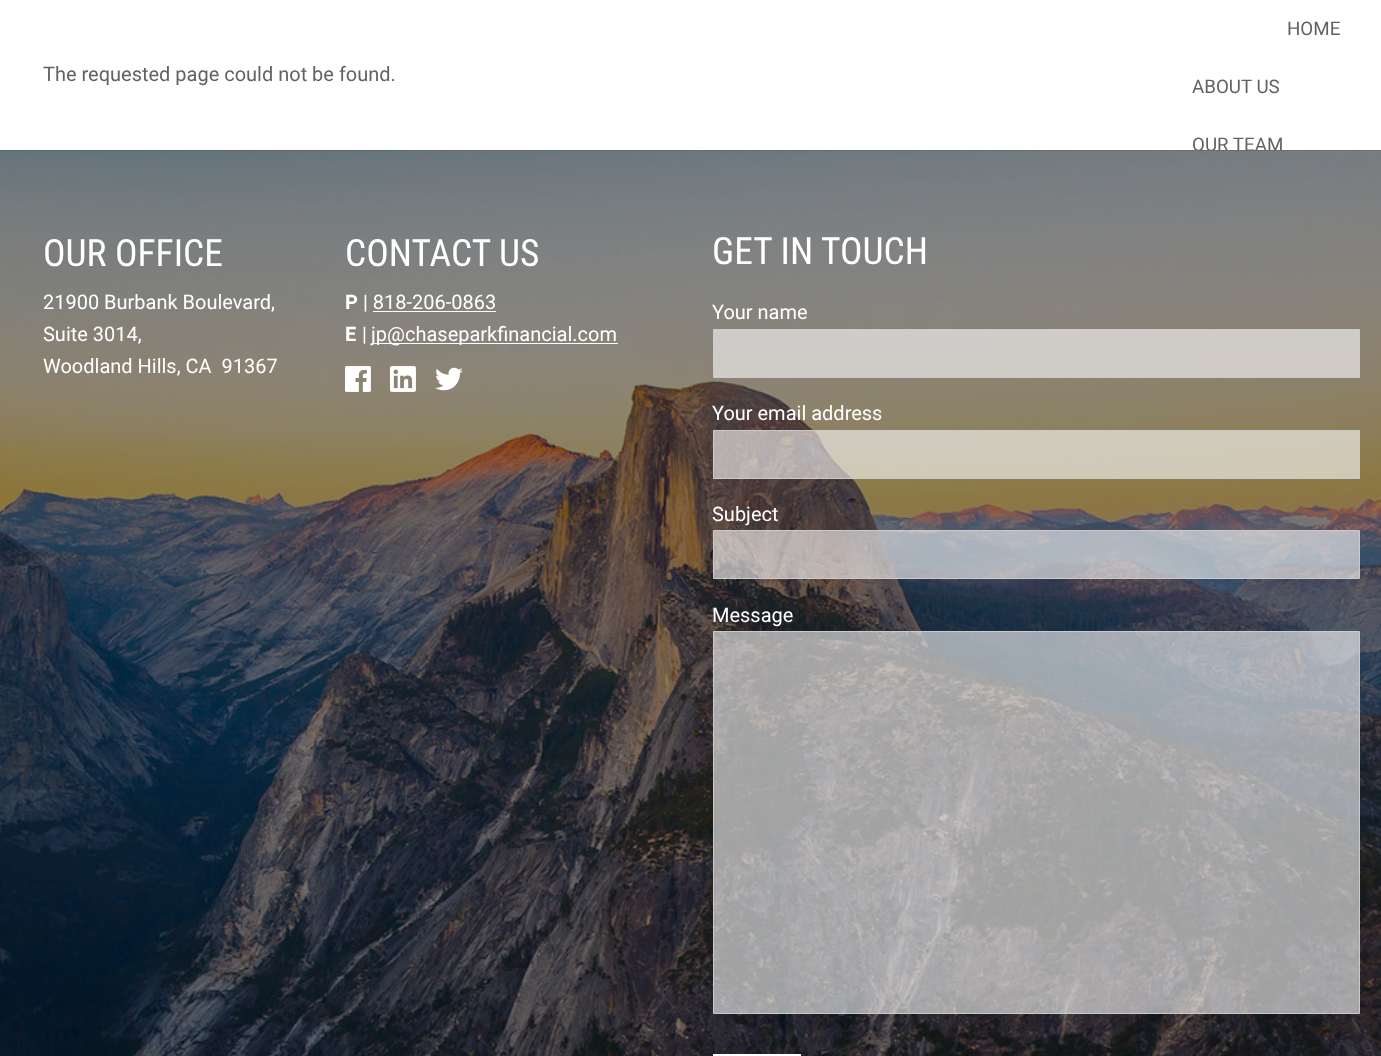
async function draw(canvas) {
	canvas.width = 1381;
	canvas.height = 1056;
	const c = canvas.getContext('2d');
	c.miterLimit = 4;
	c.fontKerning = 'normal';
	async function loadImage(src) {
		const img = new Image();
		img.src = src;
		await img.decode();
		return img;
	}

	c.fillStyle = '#fff';
	c.fillRect(0, 0, 1381, 1056);
	c.font = '20px Roboto';
	c.fillStyle = '#666064';
	c.fillText('The requested page could not be found.', 43, 81);
	c.font = '18.75px Roboto';
	for (const [text, x, y] of [
		['HOME', 1287, 35],
		['ABOUT US', 1192, 93],
		['OUR TEAM', 1192, 151],
	]) {
		c.fillText(text, x, y);
	}
	c.drawImage(await loadImage('img1.png'), 0, 150, 1381, 906);
	c.font = '37.5px Roboto Condensed';
	c.fillStyle = '#fff';
	c.fillText('OUR OFFICE', 43, 266);
	c.font = '20px Roboto';
	for (const [text, x, y] of [
		['21900 Burbank Boulevard,', 43, 309],
		['Suite 3014,', 43, 341],
		['Woodland Hills, CA  91367', 43, 373],
	]) {
		c.fillText(text, x, y);
	}
	c.font = '37.5px Roboto Condensed';
	c.fillText('CONTACT US', 345, 266);
	c.font = 'bold 20px Roboto';
	c.fillText('P', 345, 309);
	c.font = '20px Roboto';
	c.fillText('| 818-206-0863', 363, 309);
	c.fillRect(373, 311, 123, 1);
	c.font = 'bold 20px Roboto';
	c.fillText('E', 345, 341);
	c.font = '20px Roboto';
	c.fillText('|', 362, 341);
	c.fillRect(371, 343, 247, 1);
	c.fillText('jp@chaseparkfinancial.com', 371, 341);
	c.drawImage(await loadImage('img2.png'), 345, 366, 26, 26);
	c.drawImage(await loadImage('img3.png'), 390, 366, 26, 26);
	c.drawImage(await loadImage('img4.png'), 435, 367, 28, 24);
	c.font = '37.5px Roboto Condensed';
	c.fillText('GET IN TOUCH', 712, 264);
	c.font = '20px Roboto';
	c.fillText('Your name', 712, 319);
	c.fillStyle = '#fefefe99';
	c.beginPath();
	c.rect(713.5, 329.5, 646, 48);
	c.fill();
	c.strokeStyle = '#cacaca';
	c.stroke();
	c.fillStyle = '#fff';
	c.fillText('Your email address', 712, 420);
	c.fillStyle = '#fefefe99';
	c.beginPath();
	c.rect(713.5, 430.5, 646, 48);
	c.fill();
	c.stroke();
	c.fillStyle = '#fff';
	c.fillText('Subject', 712, 521);
	c.fillStyle = '#fefefe99';
	c.beginPath();
	c.rect(713.5, 530.5, 646, 48);
	c.fill();
	c.stroke();
	c.fillStyle = '#fff';
	c.fillText('Message', 712, 622);
	c.fillStyle = '#fefefe99';
	c.beginPath();
	c.rect(713.5, 631.5, 646, 382);
	c.fill();
	c.stroke();
	c.strokeStyle = '#fff';
	c.lineWidth = 3;
	c.strokeRect(714.5, 1055.5, 85, 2);
}

draw(document.querySelector('canvas'));
